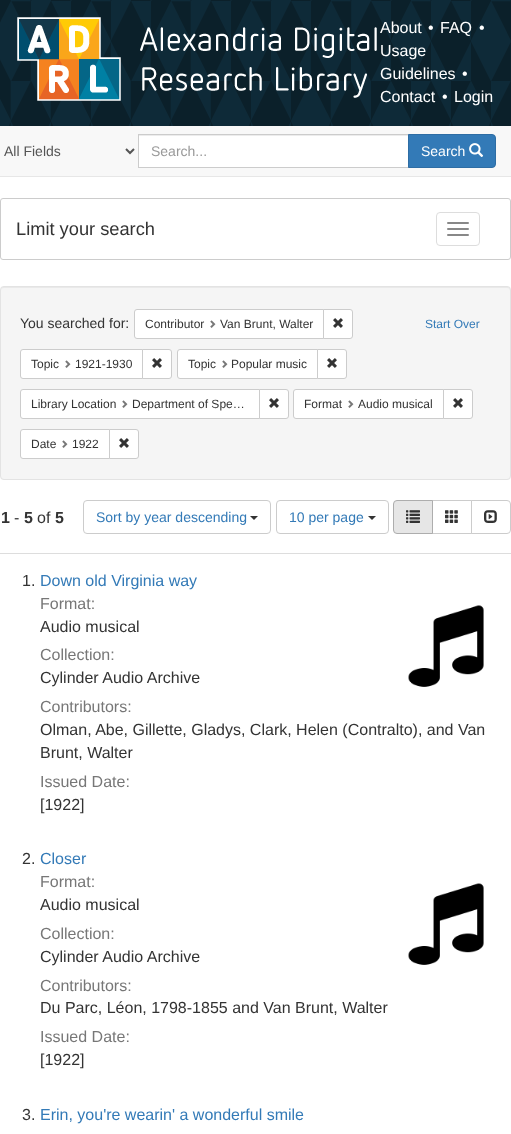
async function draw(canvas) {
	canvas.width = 511;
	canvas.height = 1134;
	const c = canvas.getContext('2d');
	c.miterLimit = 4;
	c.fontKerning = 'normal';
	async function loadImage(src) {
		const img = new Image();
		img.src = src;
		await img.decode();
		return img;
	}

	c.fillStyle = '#fff';
	c.fillRect(0, 0, 511, 1134);
	c.drawImage(await loadImage('img1.png'), 0, 0, 511, 126);
	c.drawImage(await loadImage('img2.png'), 17, 17, 360, 84);
	c.font = '16px Liberation Sans';
	for (const [text, x, y] of [
		['About', 380, 33],
		['•', 428, 33],
		['FAQ', 440, 33],
		['•', 479, 33],
		['Usage', 380, 56],
		['Guidelines', 380, 79],
		['•', 462, 79],
		['Contact', 380, 102],
		['•', 442, 102],
		['Login', 454, 102],
	]) {
		c.fillText(text, x, y);
	}
	c.fillStyle = '#f8f8f8';
	c.fillRect(0, 126, 511, 50);
	c.fillStyle = '#e7e7e7';
	c.fillRect(0, 176, 511, 1);
	c.beginPath();
	c.moveTo(126, 149);
	c.lineTo(130, 153);
	c.lineTo(134, 149);
	c.strokeStyle = '#555';
	c.lineWidth = 2;
	c.stroke();
	c.font = '14px Liberation Sans';
	c.fillStyle = '#555';
	c.fillText('All Fields', 4, 156);
	c.fillStyle = '#fff';
	c.fillRect(139, 136, 269, 31);
	c.fillStyle = '#ececec';
	c.fillRect(139, 135, 269, 1);
	c.strokeStyle = '#ccc';
	c.lineWidth = 1;
	c.strokeRect(138.5, 134.5, 270, 33);
	c.fillStyle = '#999';
	c.fillText('Search...', 151, 156);
	c.fillStyle = '#337ab7';
	c.beginPath();
	c.roundRect(408.5, 134.5, 87, 33, [0, 3.5, 3.5, 0]);
	c.fill();
	c.strokeStyle = '#2e6da4';
	c.stroke();
	c.fillStyle = '#fff';
	c.fillText('Search', 421, 156);
	c.drawImage(await loadImage('img3.png'), 469, 143, 15, 14);
	c.beginPath();
	c.roundRect(0.5, 198.5, 510, 61, 2.5);
	c.strokeStyle = '#ccc';
	c.stroke();
	c.font = '18.25px Liberation Sans';
	c.fillStyle = '#333';
	c.fillText('Limit your search', 16, 235);
	c.beginPath();
	c.roundRect(436.5, 212.5, 43, 33, 3.5);
	c.strokeStyle = '#ddd';
	c.stroke();
	c.fillStyle = '#888';
	c.beginPath();
	c.roundRect(447, 222, 22, 2, 1);
	c.fill();
	c.beginPath();
	c.roundRect(447, 228, 22, 2, 1);
	c.fill();
	c.beginPath();
	c.roundRect(447, 234, 22, 2, 1);
	c.fill();
	c.fillStyle = '#f5f5f5';
	c.beginPath();
	c.roundRect(0, 286, 511, 194, 4);
	c.fill();
	c.fillStyle = '#e9e9e9';
	c.beginPath();
	c.moveTo(4, 288);
	c.lineTo(507, 288);
	c.bezierCurveTo(509, 288, 510, 289, 510, 291);
	c.lineTo(510, 289);
	c.lineTo(508, 287);
	c.lineTo(4, 287);
	c.bezierCurveTo(2, 287, 1, 289, 1, 291);
	c.bezierCurveTo(1, 289, 2, 288, 4, 288);
	c.closePath();
	c.fill();
	c.beginPath();
	c.roundRect(0.5, 286.5, 510, 193, 3.5);
	c.strokeStyle = '#e3e3e3';
	c.stroke();
	c.font = '14px Liberation Sans';
	c.fillStyle = '#333';
	c.fillText('You searched for:', 20, 328);
	c.fillStyle = '#fff';
	c.beginPath();
	c.roundRect(134.5, 309.5, 189, 29, [2.5, 0, 0, 2.5]);
	c.fill();
	c.strokeStyle = '#ccc';
	c.stroke();
	c.font = '12px Liberation Sans';
	c.fillStyle = '#333';
	c.fillText('Contributor', 145, 328);
	c.drawImage(await loadImage('img4.png'), 210, 320, 6, 8);
	c.fillText('Van Brunt, Walter', 220, 328);
	c.fillStyle = '#fff';
	c.beginPath();
	c.roundRect(323.5, 309.5, 29, 29, [0, 2.5, 2.5, 0]);
	c.fill();
	c.stroke();
	c.drawImage(await loadImage('img5.png'), 333, 318, 10, 10);
	c.fillStyle = '#337ab7';
	c.fillText('Start Over', 425, 328);
	c.fillStyle = '#fff';
	c.beginPath();
	c.roundRect(20.5, 349.5, 122, 29, [2.5, 0, 0, 2.5]);
	c.fill();
	c.stroke();
	c.fillStyle = '#333';
	c.fillText('Topic', 31, 368);
	c.drawImage(await loadImage('img4.png'), 65, 360, 6, 8);
	c.fillText('1921-1930', 75, 368);
	c.fillStyle = '#fff';
	c.beginPath();
	c.roundRect(142.5, 349.5, 29, 29, [0, 2.5, 2.5, 0]);
	c.fill();
	c.stroke();
	c.drawImage(await loadImage('img5.png'), 152, 358, 10, 10);
	c.beginPath();
	c.roundRect(177.5, 349.5, 140, 29, [2.5, 0, 0, 2.5]);
	c.fill();
	c.stroke();
	c.fillStyle = '#333';
	c.fillText('Topic', 188, 368);
	c.drawImage(await loadImage('img4.png'), 222, 360, 6, 8);
	c.fillText('Popular music', 231, 368);
	c.fillStyle = '#fff';
	c.beginPath();
	c.roundRect(317.5, 349.5, 29, 29, [0, 2.5, 2.5, 0]);
	c.fill();
	c.stroke();
	c.drawImage(await loadImage('img5.png'), 327, 358, 10, 10);
	c.beginPath();
	c.roundRect(20.5, 389.5, 239, 29, [2.5, 0, 0, 2.5]);
	c.fill();
	c.stroke();
	c.fillStyle = '#333';
	c.fillText('Library Location', 31, 408);
	c.drawImage(await loadImage('img4.png'), 122, 400, 6, 8);
	c.fillText('Department of Spe…', 132, 408);
	c.fillStyle = '#fff';
	c.beginPath();
	c.roundRect(259.5, 389.5, 29, 29, [0, 2.5, 2.5, 0]);
	c.fill();
	c.stroke();
	c.drawImage(await loadImage('img5.png'), 269, 398, 10, 10);
	c.beginPath();
	c.roundRect(293.5, 389.5, 150, 29, [2.5, 0, 0, 2.5]);
	c.fill();
	c.stroke();
	c.fillStyle = '#333';
	c.fillText('Format', 304, 408);
	c.drawImage(await loadImage('img4.png'), 348, 400, 6, 8);
	c.fillText('Audio musical', 358, 408);
	c.fillStyle = '#fff';
	c.beginPath();
	c.roundRect(443.5, 389.5, 29, 29, [0, 2.5, 2.5, 0]);
	c.fill();
	c.stroke();
	c.drawImage(await loadImage('img5.png'), 453, 398, 10, 10);
	c.beginPath();
	c.roundRect(20.5, 429.5, 89, 29, [2.5, 0, 0, 2.5]);
	c.fill();
	c.stroke();
	c.fillStyle = '#333';
	c.fillText('Date', 31, 448);
	c.drawImage(await loadImage('img4.png'), 62, 440, 6, 8);
	c.fillText('1922', 72, 448);
	c.fillStyle = '#fff';
	c.beginPath();
	c.roundRect(109.5, 429.5, 29, 29, [0, 2.5, 2.5, 0]);
	c.fill();
	c.stroke();
	c.drawImage(await loadImage('img5.png'), 119, 438, 10, 10);
	c.fillStyle = '#ddd';
	c.fillRect(0, 553, 511, 1);
	c.font = 'bold 16px Liberation Sans';
	c.fillStyle = '#333';
	c.fillText('1', 1, 523);
	c.font = '16px Liberation Sans';
	c.fillText('-', 14, 523);
	c.font = 'bold 16px Liberation Sans';
	c.fillText('5', 24, 523);
	c.font = '16px Liberation Sans';
	c.fillText('of', 37, 523);
	c.font = 'bold 16px Liberation Sans';
	c.fillText('5', 55, 523);
	c.beginPath();
	c.roundRect(83.5, 500.5, 187, 33, 3.5);
	c.stroke();
	c.font = '14px Liberation Sans';
	c.fillStyle = '#337ab7';
	c.fillText('Sort by year descending', 96, 522);
	c.fillStyle = '#333';
	c.beginPath();
	c.moveTo(250, 516);
	c.lineTo(258, 516);
	c.lineTo(254, 520);
	c.closePath();
	c.fill();
	c.beginPath();
	c.roundRect(276.5, 500.5, 112, 33, 3.5);
	c.stroke();
	c.fillStyle = '#337ab7';
	c.fillText('10 per page', 289, 522);
	c.fillStyle = '#333';
	c.beginPath();
	c.moveTo(368, 516);
	c.lineTo(376, 516);
	c.lineTo(372, 520);
	c.closePath();
	c.fill();
	c.strokeRect(432.5, 500.5, 39, 33);
	c.fillStyle = '#e6e6e6';
	c.beginPath();
	c.roundRect(393.5, 500.5, 39, 33, [3.5, 0, 0, 3.5]);
	c.fill();
	c.strokeStyle = '#adadad';
	c.stroke();
	c.drawImage(await loadImage('img6.png'), 406, 510, 14, 13);
	c.drawImage(await loadImage('img7.png'), 445, 510, 13, 13);
	c.fillStyle = '#fff';
	c.beginPath();
	c.roundRect(471.5, 500.5, 39, 33, [0, 3.5, 3.5, 0]);
	c.fill();
	c.strokeStyle = '#ccc';
	c.stroke();
	c.drawImage(await loadImage('img8.png'), 484, 510, 13, 13);
	c.font = '16px Liberation Sans';
	c.fillStyle = '#333';
	c.fillText('1.', 22, 586);
	c.fillStyle = '#337ab7';
	c.fillText('Down old Virginia way', 40, 586);
	c.fillStyle = '#777';
	c.fillText('Format:', 40, 609);
	c.fillStyle = '#333';
	c.fillText('Audio musical', 40, 632);
	c.fillStyle = '#777';
	c.fillText('Collection:', 40, 660);
	c.fillStyle = '#333';
	c.fillText('Cylinder Audio Archive', 40, 683);
	c.fillStyle = '#777';
	c.fillText('Contributors:', 40, 712);
	c.fillStyle = '#333';
	c.fillText('Olman, Abe, Gillette, Gladys, Clark, Helen (Contralto), and Van', 40, 735);
	c.fillText('Brunt, Walter', 40, 758);
	c.fillStyle = '#777';
	c.fillText('Issued Date:', 40, 787);
	c.fillStyle = '#333';
	c.fillText('[1922]', 40, 810);
	c.drawImage(await loadImage('img9.png'), 408, 605, 76, 82);
	c.fillText('2.', 22, 864);
	c.fillStyle = '#337ab7';
	c.fillText('Closer', 40, 864);
	c.fillStyle = '#777';
	c.fillText('Format:', 40, 887);
	c.fillStyle = '#333';
	c.fillText('Audio musical', 40, 910);
	c.fillStyle = '#777';
	c.fillText('Collection:', 40, 939);
	c.fillStyle = '#333';
	c.fillText('Cylinder Audio Archive', 40, 962);
	c.fillStyle = '#777';
	c.fillText('Contributors:', 40, 991);
	c.fillStyle = '#333';
	c.fillText('Du Parc, Léon, 1798-1855 and Van Brunt, Walter', 40, 1013);
	c.fillStyle = '#777';
	c.fillText('Issued Date:', 40, 1042);
	c.fillStyle = '#333';
	c.fillText('[1922]', 40, 1065);
	c.drawImage(await loadImage('img10.png'), 408, 883, 76, 82);
	c.fillText('3.', 22, 1120);
	c.fillStyle = '#337ab7';
	c.fillText('Erin, you\'re wearin\' a wonderful smile', 40, 1120);
}

draw(document.querySelector('canvas'));
